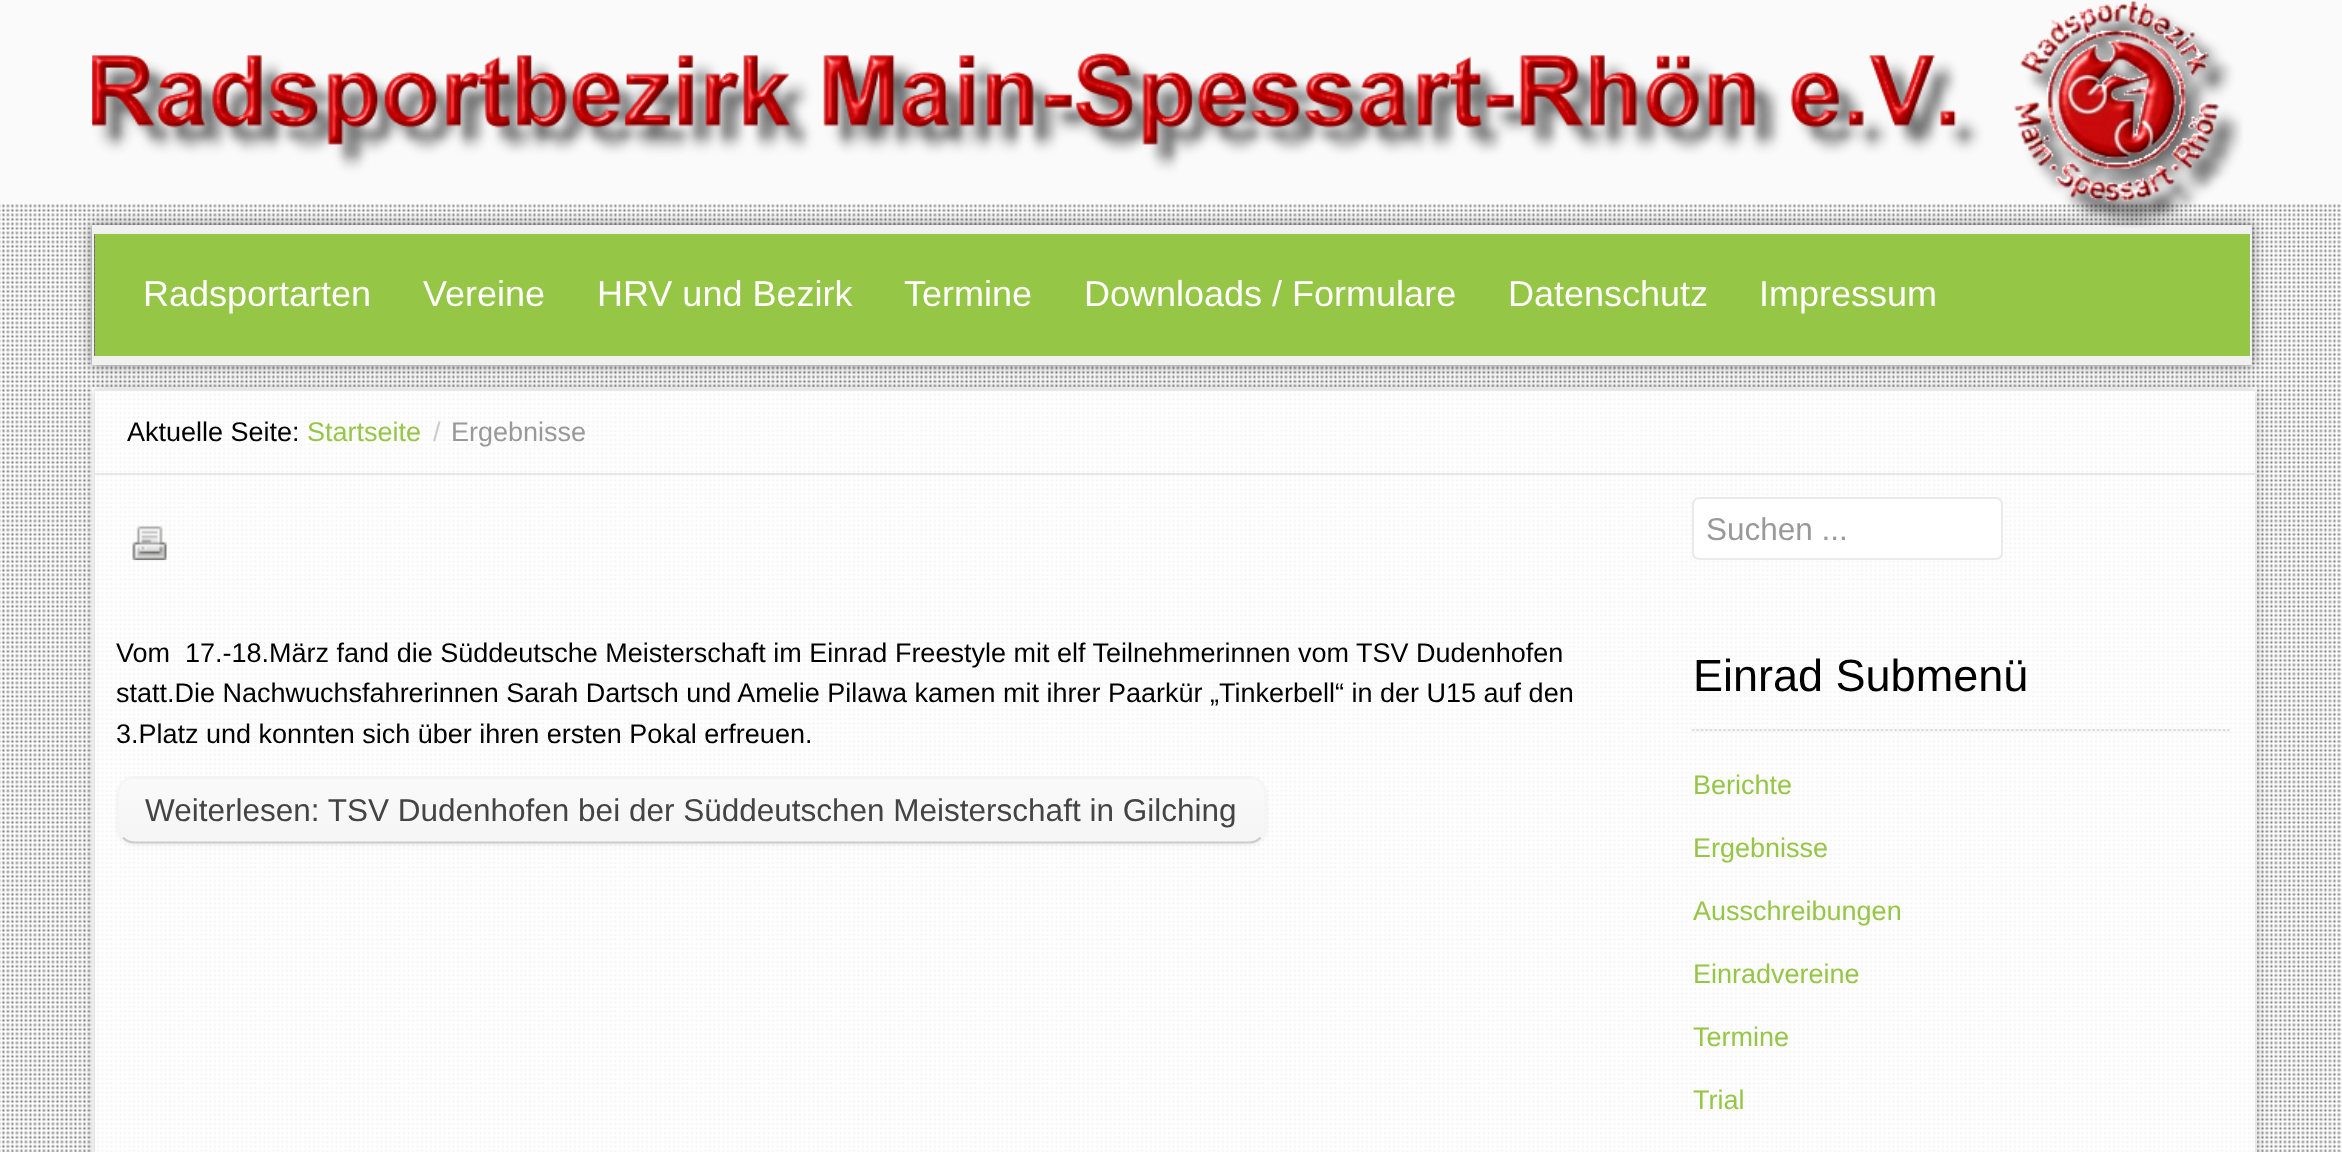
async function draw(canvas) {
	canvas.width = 2342;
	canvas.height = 1152;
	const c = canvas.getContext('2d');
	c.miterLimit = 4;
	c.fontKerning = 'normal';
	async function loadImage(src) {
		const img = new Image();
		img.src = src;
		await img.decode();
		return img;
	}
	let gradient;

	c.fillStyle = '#fff';
	c.fillRect(0, 0, 2342, 1152);
	c.drawImage(await loadImage('img1.png'), 0, 203, 2342, 949);
	c.fillStyle = '#fafafa';
	c.fillRect(0, 0, 2342, 203);
	c.fillStyle = '#0000004d';
	c.filter = 'blur(1px)';
	c.beginPath();
	c.rect(92, 225, 2160, 140);
	c.fill();
	c.filter = 'none';
	c.fillStyle = '#00000066';
	c.filter = 'blur(7px)';
	c.beginPath();
	c.rect(92, 225, 2160, 140);
	c.fill();
	c.filter = 'none';
	c.fillStyle = '#f1f1f1';
	c.fillRect(94, 225, 2156, 9);
	c.fillRect(92, 225, 2, 140);
	c.drawImage(await loadImage('img2.png'), 92, 0, 2151, 228);
	for (const [x, y, w, h, color] of [
		[95, 234, 2155, 122, '#96c646'],
		[2250, 225, 2, 131, '#f1f1f1'],
		[94, 356, 2158, 9, '#f1f1f1'],
	]) {
		c.fillStyle = color;
		c.fillRect(x, y, w, h);
	}
	c.font = '36px Liberation Sans';
	c.fillStyle = '#fff';
	for (const [text, x, y] of [
		['Radsportarten', 143, 306],
		['Vereine', 423, 306],
		['HRV und Bezirk', 597, 306],
		['Termine', 904, 306],
		['Downloads / Formulare', 1084, 306],
		['Datenschutz', 1508, 306],
		['Impressum', 1759, 306],
	]) {
		c.fillText(text, x, y);
	}
	c.fillStyle = '#ffffffe6';
	c.beginPath();
	c.rect(93, 388, 2163, 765);
	c.fill();
	c.strokeStyle = '#fff';
	c.lineWidth = 2;
	c.stroke();
	c.save();
	c.beginPath();
	c.moveTo(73, 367);
	c.lineTo(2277, 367);
	c.lineTo(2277, 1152);
	c.lineTo(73, 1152);
	c.closePath();
	c.moveTo(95, 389);
	c.lineTo(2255, 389);
	c.lineTo(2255, 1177);
	c.lineTo(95, 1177);
	c.closePath();
	c.clip('evenodd');
	c.fillStyle = '#00000033';
	c.filter = 'blur(7px)';
	c.beginPath();
	c.rect(95, 389, 2160, 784);
	c.fill();
	c.filter = 'none';
	c.restore();
	c.fillStyle = '#e7e7e7';
	c.fillRect(95, 389, 2160, 2);
	c.fillRect(95, 473, 2160, 2);
	c.font = '27px Liberation Sans';
	c.fillStyle = '#000';
	c.fillText('Aktuelle Seite:', 127, 441);
	c.fillStyle = '#96c646';
	c.fillText('Startseite', 307, 441);
	c.fillStyle = '#ccc';
	c.fillText('/', 433, 441);
	c.fillStyle = '#999';
	c.fillText('Ergebnisse', 451, 441);
	c.drawImage(await loadImage('img3.png'), 132, 526, 35, 35);
	c.fillStyle = '#000';
	for (const [text, x, y] of [
		['Vom  17.-18.März fand die Süddeutsche Meisterschaft im Einrad Freestyle mit elf Teilnehmerinnen vom TSV Dudenhofen', 116, 662],
		['statt.Die Nachwuchsfahrerinnen Sarah Dartsch und Amelie Pilawa kamen mit ihrer Paarkür „Tinkerbell“ in der U15 auf den', 116, 702],
		['3.Platz und konnten sich über ihren ersten Pokal erfreuen.', 116, 743],
	]) {
		c.fillText(text, x, y);
	}
	c.fillStyle = '#0000000d';
	c.filter = 'blur(2px)';
	c.beginPath();
	c.roundRect(117, 779, 1150, 67, 18);
	c.fill();
	c.filter = 'none';
	c.fillStyle = '#f1f1f1';
	c.beginPath();
	c.roundRect(117, 776, 1150, 68, 18);
	c.fill();
	c.save();
	c.beginPath();
	c.roundRect(117, 776, 1150, 68, 18);
	c.clip();
	gradient = c.createLinearGradient(692, 778, 692, 842);
	gradient.addColorStop(0, '#fafafa');
	gradient.addColorStop(1, '#f5f5f5');
	c.fillStyle = gradient;
	c.fillRect(117, 779, 1150, 63);
	c.restore();
	c.beginPath();
	c.moveTo(1260.5, 837.5);
	c.bezierCurveTo(1257.5, 841, 1253, 842.5, 1249, 842.5);
	c.lineTo(135, 842.5);
	c.bezierCurveTo(130.5, 842.5, 126, 841, 123, 837.5);
	c.strokeStyle = '#ccc';
	c.lineWidth = 2.2;
	c.stroke();
	c.beginPath();
	c.moveTo(123, 837.5);
	c.bezierCurveTo(116, 830.5, 118, 819, 118, 810);
	c.bezierCurveTo(118, 802, 116.5, 792, 121, 785);
	c.bezierCurveTo(124, 780, 129.5, 777.5, 135, 777.5);
	c.lineTo(1252, 777.5);
	c.bezierCurveTo(1268, 781, 1265.5, 797.5, 1265.5, 810);
	c.bezierCurveTo(1265.5, 819, 1268, 830.5, 1260.5, 837.5);
	c.strokeStyle = '#f5f5f5';
	c.stroke();
	c.font = '31.5px Liberation Sans';
	c.fillStyle = '#444';
	c.fillText('Weiterlesen: TSV Dudenhofen bei der Süddeutschen Meisterschaft in Gilching', 145, 821);
	c.fillStyle = '#fff';
	c.beginPath();
	c.roundRect(1693, 498, 309, 61, 6);
	c.fill();
	c.strokeStyle = '#eaeaea';
	c.lineWidth = 2;
	c.stroke();
	c.fillStyle = '#999';
	c.fillText('Suchen ...', 1706, 540);
	c.drawImage(await loadImage('img4.png'), 1692, 729, 538, 3);
	c.font = '45px Liberation Sans';
	c.fillStyle = '#000';
	c.fillText('Einrad Submenü', 1693, 691);
	c.font = '27px Liberation Sans';
	c.fillStyle = '#96c646';
	for (const [text, x, y] of [
		['Berichte', 1693, 794],
		['Ergebnisse', 1693, 857],
		['Ausschreibungen', 1693, 920],
		['Einradvereine', 1693, 983],
		['Termine', 1693, 1046],
		['Trial', 1693, 1109],
	]) {
		c.fillText(text, x, y);
	}
}

draw(document.querySelector('canvas'));
